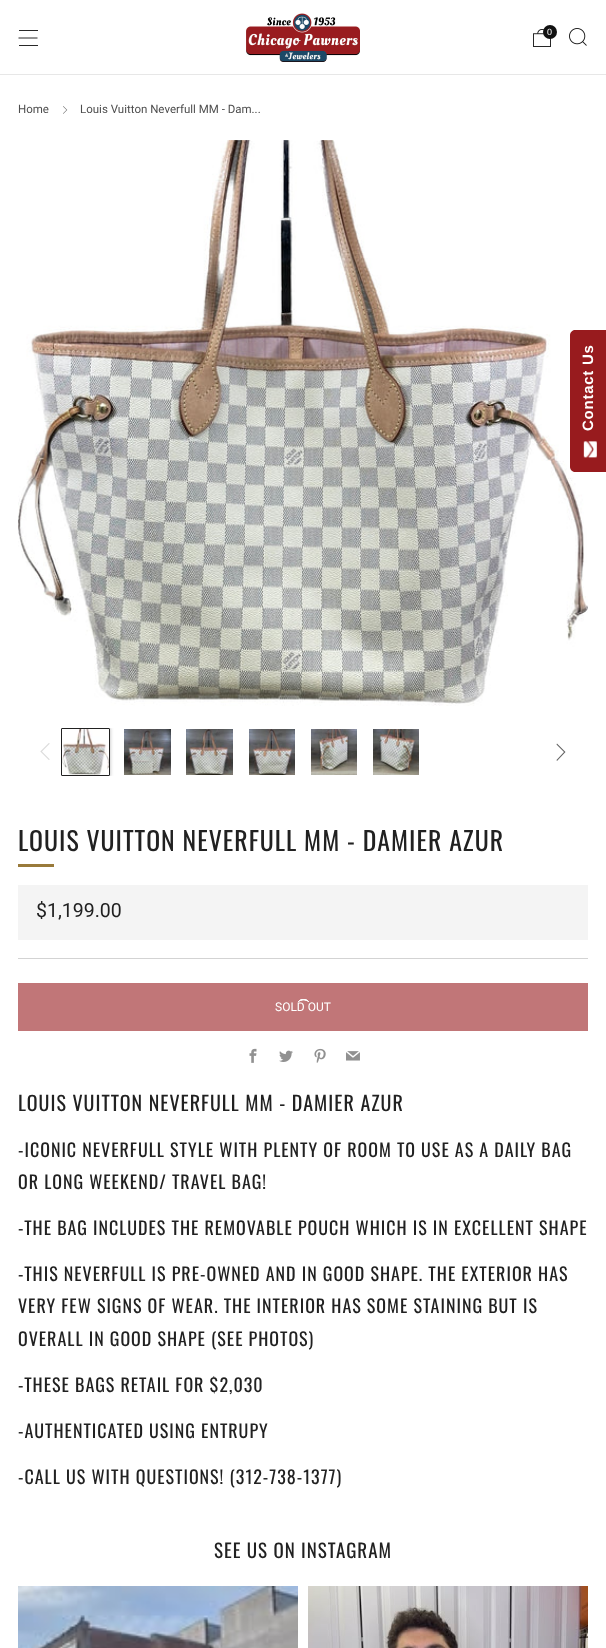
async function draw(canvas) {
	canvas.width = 606;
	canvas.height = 1648;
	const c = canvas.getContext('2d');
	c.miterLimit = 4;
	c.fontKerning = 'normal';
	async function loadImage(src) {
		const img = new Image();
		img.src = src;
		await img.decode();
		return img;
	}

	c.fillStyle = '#fff';
	c.fillRect(0, 0, 606, 1648);
	c.fillStyle = '#e7e7e7';
	c.fillRect(0, 74, 606, 1);
	c.fillStyle = '#292929';
	c.fillRect(19, 30, 19, 1);
	c.beginPath();
	c.moveTo(18.5, 38);
	c.lineTo(37.5, 38);
	c.strokeStyle = '#111';
	c.lineWidth = 0.9;
	c.stroke();
	c.fillRect(19, 45, 19, 1);
	c.drawImage(await loadImage('img1.png'), 246, 13, 114, 49);
	c.drawImage(await loadImage('img2.png'), 533, 29, 18, 18);
	c.fillStyle = '#111';
	c.beginPath();
	c.arc(550, 32, 7, 0, 2 * Math.PI);
	c.fill();
	c.font = '9px Liberation Sans';
	c.fillStyle = '#fff';
	c.fillText('0', 547, 35);
	c.drawImage(await loadImage('img3.png'), 569, 28, 18, 18);
	c.font = '11.5px Roboto';
	c.fillStyle = '#4d4d4d';
	c.fillText('Home', 18, 113);
	c.drawImage(await loadImage('img4.png'), 63, 106, 5, 8);
	c.fillText('Louis Vuitton Neverfull MM - Dam...', 80, 113);
	c.drawImage(await loadImage('img5.png'), 18, 140, 570, 566);
	c.drawImage(await loadImage('img6.png'), 40, 743, 10, 17);
	c.save();
	c.beginPath();
	c.rect(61, 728, 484, 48);
	c.clip();
	c.fillStyle = '#21212133';
	c.filter = 'blur(1.5px)';
	c.beginPath();
	c.roundRect(60, 727, 51, 50, 2);
	c.fill();
	c.filter = 'none';
	c.restore();
	c.beginPath();
	c.roundRect(61.5, 728.5, 48, 47, 0.5);
	c.strokeStyle = '#212121';
	c.lineWidth = 1;
	c.stroke();
	c.drawImage(await loadImage('img7.png'), 62, 729, 47, 46);
	c.drawImage(await loadImage('img8.png'), 124, 729, 47, 46);
	c.drawImage(await loadImage('img9.png'), 186, 729, 47, 46);
	c.drawImage(await loadImage('img10.png'), 249, 729, 46, 46);
	c.drawImage(await loadImage('img11.png'), 311, 729, 46, 46);
	c.drawImage(await loadImage('img12.png'), 373, 729, 46, 46);
	c.fillStyle = '#646464';
	c.beginPath();
	c.moveTo(556.5, 760);
	c.lineTo(557, 761);
	c.lineTo(565.5, 752);
	c.lineTo(557, 743.5);
	c.lineTo(556.5, 744.5);
	c.lineTo(564, 752);
	c.closePath();
	c.fill();
	c.letterSpacing = '1px';
	c.font = '25.8px Oswald';
	c.fillStyle = '#212121';
	c.fillText('LOUIS VUITTON NEVERFULL MM - DAMIER AZUR', 18, 851);
	c.fillStyle = '#997a3b';
	c.fillRect(18, 864, 36, 3);
	c.fillStyle = '#f4f4f4';
	c.fillRect(18, 885, 570, 55);
	c.letterSpacing = '0px';
	c.font = '19.5px Roboto';
	c.fillStyle = '#212121';
	c.fillText('$1,199.00', 36, 917);
	c.fillStyle = '#d3d3d3';
	c.fillRect(18, 958, 570, 1);
	c.fillStyle = '#c17678';
	c.fillRect(18, 983, 570, 48);
	c.beginPath();
	c.moveTo(298.5, 1001.5);
	c.bezierCurveTo(301, 999, 306, 999, 308.5, 1001.5);
	c.moveTo(298.5, 1001.5);
	c.bezierCurveTo(301, 999, 306, 999, 308.5, 1001.5);
	c.moveTo(298.5, 1001.5);
	c.bezierCurveTo(301, 999, 306, 999, 308.5, 1001.5);
	c.moveTo(298.5, 1001.5);
	c.bezierCurveTo(301, 999, 306, 999, 308.5, 1001.5);
	c.strokeStyle = '#fff';
	c.stroke();
	c.font = '12px Roboto';
	c.fillStyle = '#fff';
	c.fillText('SOLD OUT', 275, 1011);
	c.drawImage(await loadImage('img13.png'), 249, 1048, 8, 15);
	c.drawImage(await loadImage('img14.png'), 279, 1050, 14, 12);
	c.drawImage(await loadImage('img15.png'), 314, 1048, 12, 15);
	c.drawImage(await loadImage('img16.png'), 346, 1051, 14, 10);
	c.letterSpacing = '1px';
	c.font = '20px Oswald';
	c.fillStyle = '#212121';
	c.fillText('LOUIS VUITTON NEVERFULL MM - DAMIER AZUR', 18, 1111);
	c.font = '18px Oswald';
	for (const [text, x, y] of [
		['-ICONIC NEVERFULL STYLE WITH PLENTY OF ROOM TO USE AS A DAILY BAG', 18, 1157],
		['OR LONG WEEKEND/ TRAVEL BAG!', 18, 1189],
		['-THE BAG INCLUDES THE REMOVABLE POUCH WHICH IS IN EXCELLENT SHAPE', 18, 1235],
		['-THIS NEVERFULL IS PRE-OWNED AND IN GOOD SHAPE. THE EXTERIOR HAS', 18, 1281],
		['VERY FEW SIGNS OF WEAR. THE INTERIOR HAS SOME STAINING BUT IS', 18, 1313],
		['OVERALL IN GOOD SHAPE (SEE PHOTOS)', 18, 1346],
		['-THESE BAGS RETAIL FOR $2,030', 18, 1392],
		['-AUTHENTICATED USING ENTRUPY', 18, 1438],
		['-CALL US WITH QUESTIONS! (312-738-1377)', 18, 1484],
	]) {
		c.fillText(text, x, y);
	}
	c.font = '19px Oswald';
	c.fillText('SEE US ON INSTAGRAM', 214, 1558);
	c.drawImage(await loadImage('img17.png'), 18, 1586, 280, 62);
	c.drawImage(await loadImage('img18.png'), 308, 1586, 280, 62);
	c.fillStyle = '#981b1e';
	c.beginPath();
	c.moveTo(570, 467);
	c.lineTo(570, 335);
	c.bezierCurveTo(570, 332, 573, 330, 575, 330);
	c.lineTo(606, 330);
	c.lineTo(606, 472);
	c.lineTo(575, 472);
	c.bezierCurveTo(573, 472, 570, 470, 570, 467);
	c.closePath();
	c.fill();
	c.letterSpacing = '0.75px';
	c.font = 'bold 15px Liberation Sans';
	c.fillStyle = '#fff';
	c.save();
	c.translate(593, 431);
	c.rotate(-90 * Math.PI / 180);
	c.fillText('Contact Us', 0, 0);
	c.restore();
	c.drawImage(await loadImage('img19.png'), 583, 441, 14, 17);
}

draw(document.querySelector('canvas'));
